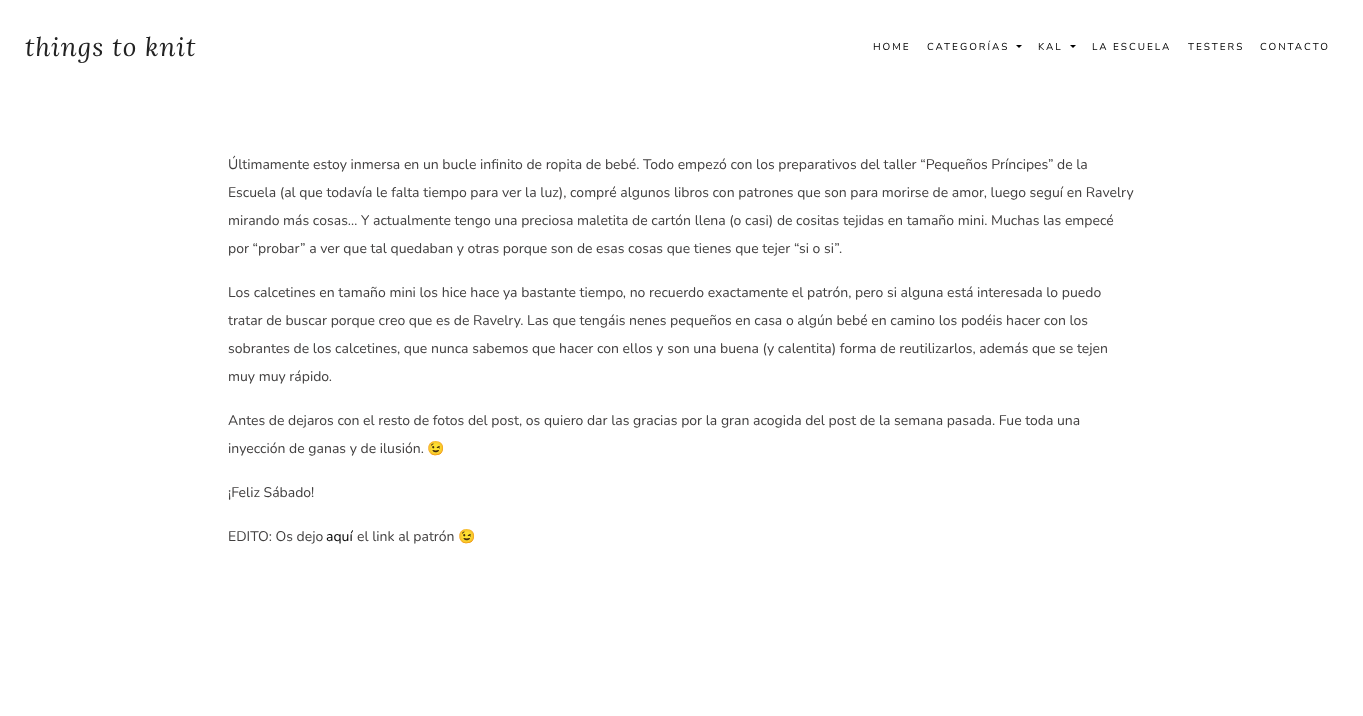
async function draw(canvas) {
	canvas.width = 1363;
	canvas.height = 716;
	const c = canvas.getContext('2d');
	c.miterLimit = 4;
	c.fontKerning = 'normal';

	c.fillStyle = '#fff';
	c.fillRect(0, 0, 1363, 716);
	c.letterSpacing = '1px';
	c.font = 'italic 26px Lora';
	c.fillStyle = '#222';
	c.fillText('things to knit', 25, 56);
	c.letterSpacing = '2px';
	c.font = '200 10px Nunito';
	c.fillStyle = '#000';
	c.fillText('HOME', 873, 50);
	c.fillText('CATEGORÍAS', 927, 50);
	c.beginPath();
	c.moveTo(1016, 45);
	c.lineTo(1022, 45);
	c.lineTo(1019, 48);
	c.closePath();
	c.fill();
	c.fillText('KAL', 1038, 50);
	c.beginPath();
	c.moveTo(1070, 45);
	c.lineTo(1076, 45);
	c.lineTo(1073, 48);
	c.closePath();
	c.fill();
	for (const [text, x, y] of [
		['LA ESCUELA', 1092, 50],
		['TESTERS', 1188, 50],
		['CONTACTO', 1260, 50],
	]) {
		c.fillText(text, x, y);
	}
	c.letterSpacing = '0px';
	c.font = '200 14px Nunito';
	c.fillStyle = '#424040';
	for (const [text, x, y] of [
		['Últimamente estoy inmersa en un bucle infinito de ropita de bebé. Todo empezó con los preparativos del taller “Pequeños Príncipes” de la', 228, 169],
		['Escuela (al que todavía le falta tiempo para ver la luz), compré algunos libros con patrones que son para morirse de amor, luego seguí en Ravelry', 228, 197],
		['mirando más cosas… Y actualmente tengo una preciosa maletita de cartón llena (o casi) de cositas tejidas en tamaño mini. Muchas las empecé', 228, 225],
		['por “probar” a ver que tal quedaban y otras porque son de esas cosas que tienes que tejer “si o si”.', 228, 253],
		['Los calcetines en tamaño mini los hice hace ya bastante tiempo, no recuerdo exactamente el patrón, pero si alguna está interesada lo puedo', 228, 297],
		['tratar de buscar porque creo que es de Ravelry. Las que tengáis nenes pequeños en casa o algún bebé en camino los podéis hacer con los', 228, 325],
		['sobrantes de los calcetines, que nunca sabemos que hacer con ellos y son una buena (y calentita) forma de reutilizarlos, además que se tejen', 228, 353],
		['muy muy rápido.', 228, 381],
		['Antes de dejaros con el resto de fotos del post, os quiero dar las gracias por la gran acogida del post de la semana pasada. Fue toda una', 228, 425],
		['inyección de ganas y de ilusión.', 228, 453],
	]) {
		c.fillText(text, x, y);
	}
	c.font = '14px Noto Color Emoji';
	c.fillText('😉', 427, 453);
	c.font = '200 14px Nunito';
	c.fillText('¡Feliz Sábado!', 228, 497);
	c.fillText('EDITO: Os dejo', 228, 541);
	c.fillStyle = '#000';
	c.fillText('aquí', 326, 541);
	c.fillStyle = '#424040';
	c.fillText('el link al patrón', 357, 541);
	c.font = '14px Noto Color Emoji';
	c.fillText('😉', 458, 541);
}

draw(document.querySelector('canvas'));
